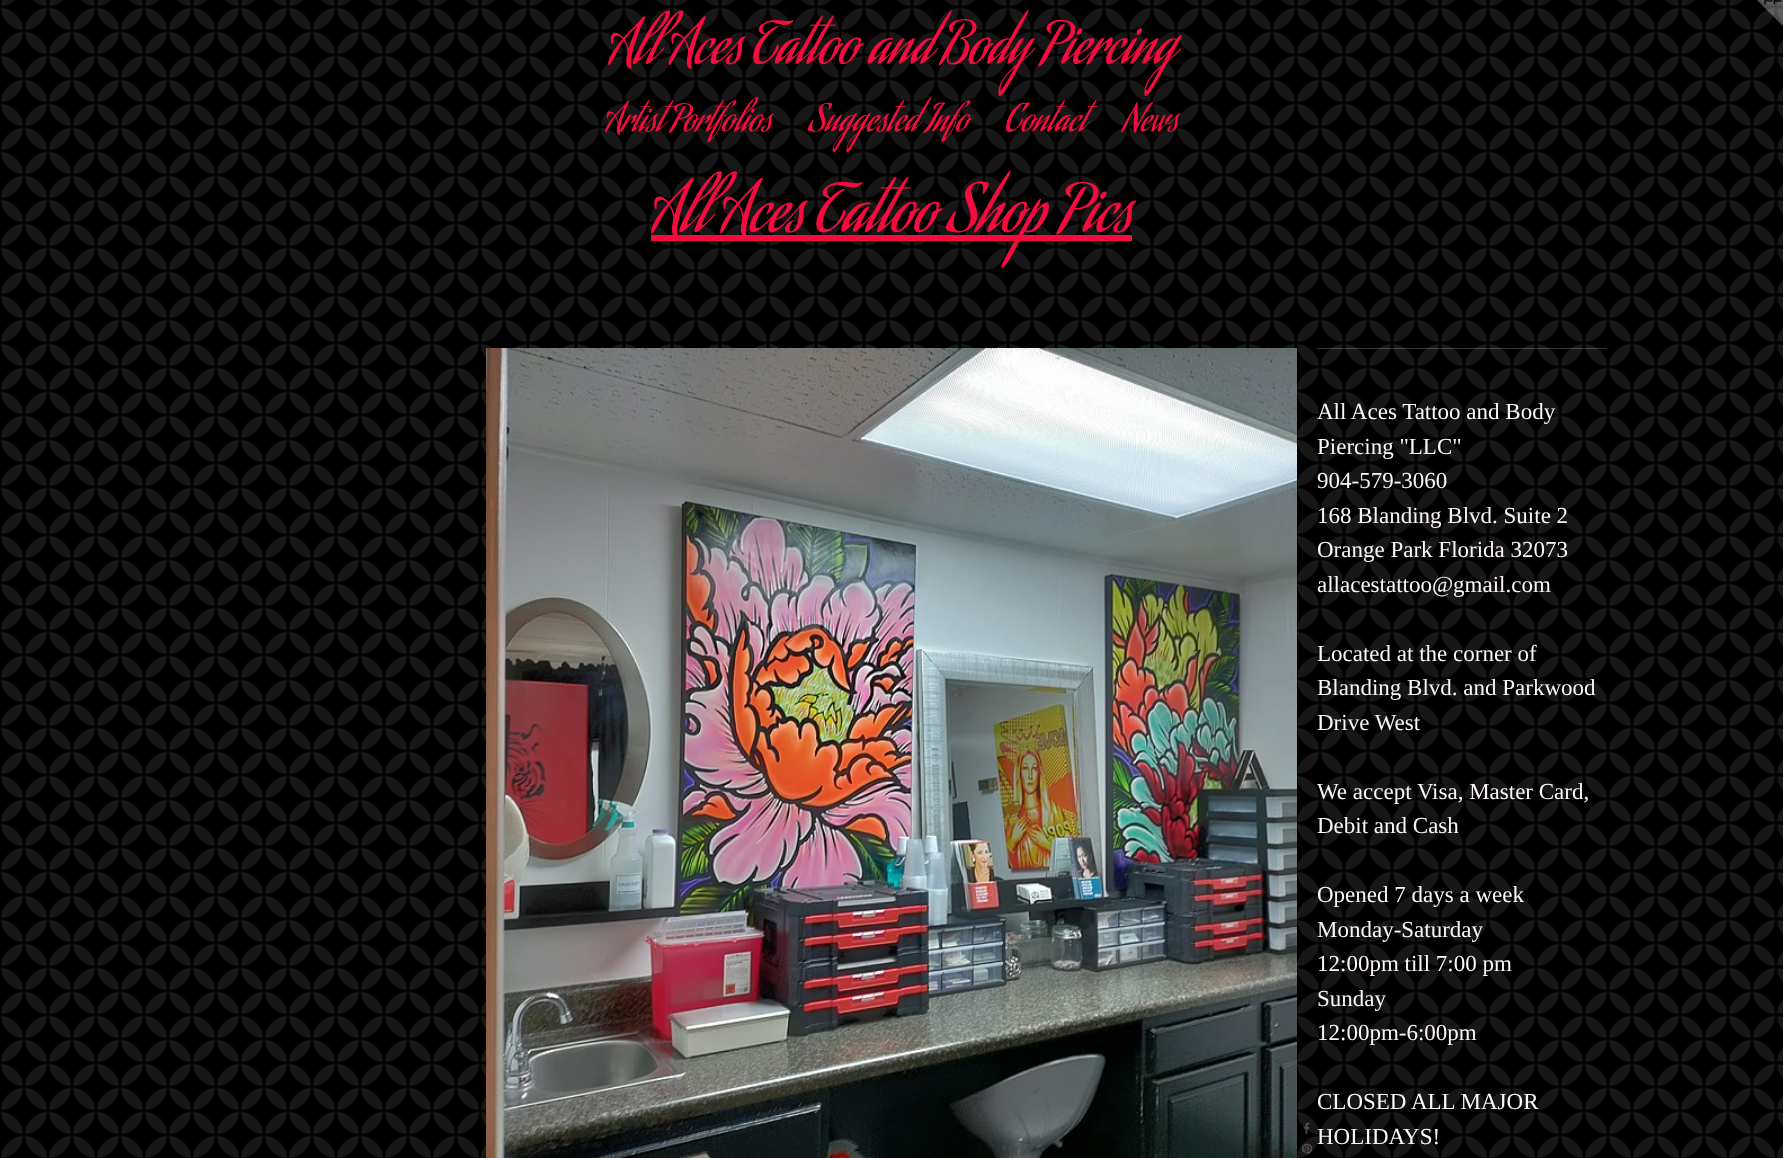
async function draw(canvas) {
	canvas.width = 1783;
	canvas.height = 1158;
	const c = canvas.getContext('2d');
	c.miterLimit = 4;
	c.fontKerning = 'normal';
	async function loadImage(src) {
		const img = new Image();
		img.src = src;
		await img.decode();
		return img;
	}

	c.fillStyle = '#000';
	c.fillRect(0, 0, 1783, 1158);
	c.drawImage(await loadImage('img1.png'), 1, 0, 1782, 1158);
	c.font = '57px Aguafina Script';
	c.fillStyle = '#f50b3d';
	c.fillText('All Aces Tattoo and Body Piercing', 608, 63);
	c.drawImage(await loadImage('img2.png'), 1757, 0, 26, 26);
	c.font = '37px Aguafina Script';
	for (const [text, x, y] of [
		['Artist Portfolios', 605, 131],
		['Suggested Info', 809, 131],
		['Contact', 1005, 131],
		['News', 1124, 131],
	]) {
		c.fillText(text, x, y);
	}
	c.fillRect(651, 235, 481, 6);
	c.font = '65px Aguafina Script';
	c.fillText('All Aces Tattoo Shop Pics', 651, 231);
	c.drawImage(await loadImage('img3.png'), 486, 348, 811, 810);
	c.drawImage(await loadImage('img4.png'), 1303, 1122, 7, 12);
	c.drawImage(await loadImage('img5.png'), 1302, 1143, 11, 11);
	c.fillStyle = '#fdf6f633';
	c.fillRect(1317, 348, 290, 1);
	c.font = '23px Liberation Serif';
	c.fillStyle = '#fdf6f6';
	for (const [text, x, y] of [
		['All Aces Tattoo and Body', 1317, 419],
		['Piercing "LLC"', 1317, 454],
		['904-579-3060', 1317, 488],
		['168 Blanding Blvd. Suite 2', 1317, 523],
		['Orange Park Florida 32073', 1317, 557],
		['allacestattoo@gmail.com', 1317, 592],
		['Located at the corner of', 1317, 661],
		['Blanding Blvd. and Parkwood', 1317, 695],
		['Drive West', 1317, 730],
		['We accept Visa, Master Card,', 1317, 799],
		['Debit and Cash', 1317, 833],
		['Opened 7 days a week', 1317, 902],
		['Monday-Saturday', 1317, 937],
		['12:00pm till 7:00 pm', 1317, 971],
		['Sunday', 1317, 1006],
		['12:00pm-6:00pm', 1317, 1040],
		['CLOSED ALL MAJOR', 1317, 1109],
		['HOLIDAYS!', 1317, 1144],
	]) {
		c.fillText(text, x, y);
	}
}

draw(document.querySelector('canvas'));
